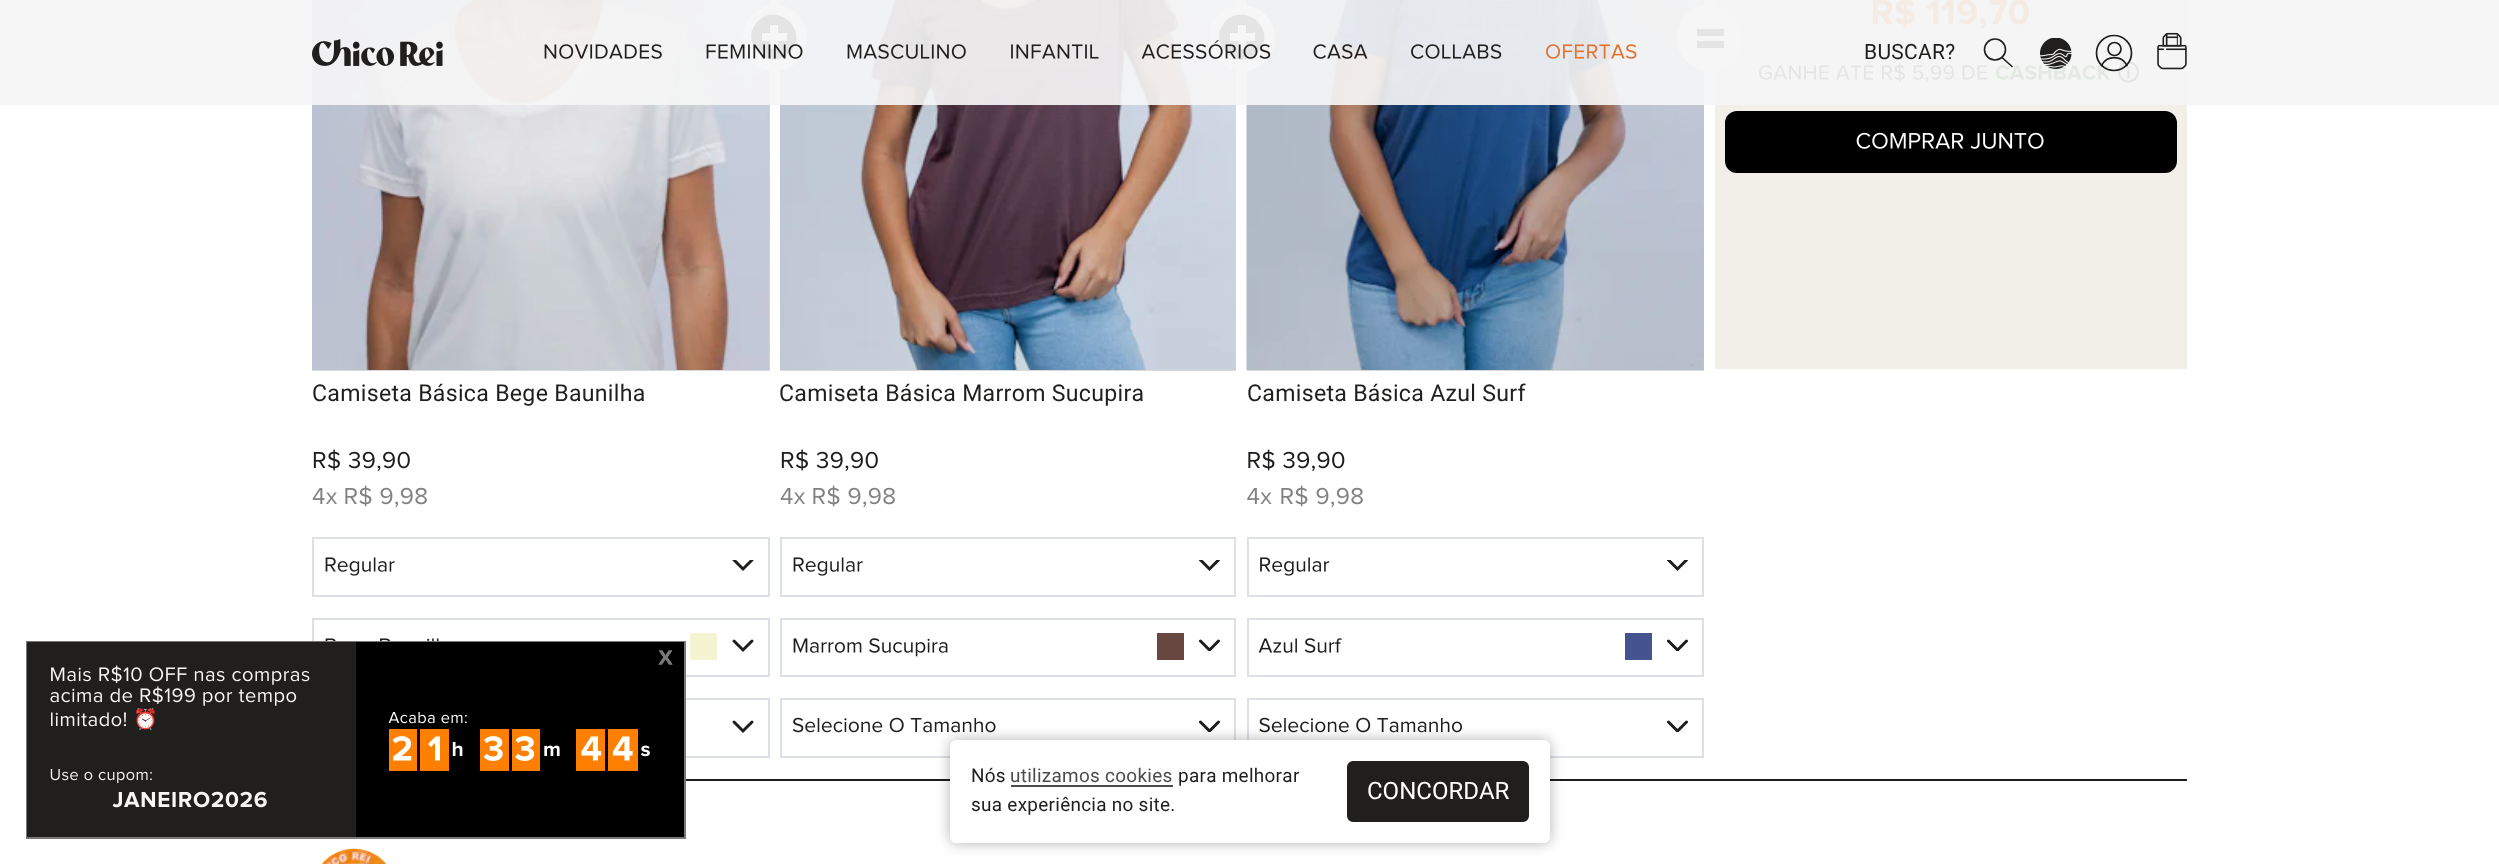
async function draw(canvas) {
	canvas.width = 2499;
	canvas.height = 864;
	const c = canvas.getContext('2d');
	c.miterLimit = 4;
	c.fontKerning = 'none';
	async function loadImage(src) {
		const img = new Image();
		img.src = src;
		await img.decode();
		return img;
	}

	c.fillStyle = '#fff';
	c.fillRect(0, 0, 2499, 864);
	c.fillStyle = '#f2efe9';
	c.fillRect(1715, 0, 472, 369);
	c.drawImage(await loadImage('img12.png'), 1872, 0, 157, 29);
	c.drawImage(await loadImage('img13.png'), 1759, 61, 228, 22);
	c.drawImage(await loadImage('img14.png'), 1995, 65, 115, 15);
	c.drawImage(await loadImage('img15.png'), 2118, 62, 21, 21);
	c.fillStyle = '#d9d9d9';
	c.fillRect(312, 0, 458, 371);
	c.drawImage(await loadImage('img17.png'), 312, 0, 458, 370);
	c.drawImage(await loadImage('img24.png'), 780, 0, 456, 370);
	c.fillStyle = '#fff';
	c.beginPath();
	c.roundRect(743, 5, 64, 66, 32);
	c.fill();
	c.fillStyle = '#1e1e1d';
	c.beginPath();
	c.moveTo(758, 21);
	c.bezierCurveTo(737, 42, 770, 74, 790, 52);
	c.bezierCurveTo(810, 32, 779, 1, 758, 21);
	c.closePath();
	c.moveTo(787, 41);
	c.lineTo(778, 41);
	c.lineTo(778, 49);
	c.lineTo(770, 49);
	c.lineTo(770, 41);
	c.lineTo(762, 41);
	c.lineTo(762, 33);
	c.lineTo(770, 33);
	c.lineTo(770, 25);
	c.lineTo(778, 25);
	c.lineTo(778, 33);
	c.lineTo(787, 33);
	c.closePath();
	c.fill();
	c.drawImage(await loadImage('img27.png'), 1246, 0, 458, 370);
	c.fillStyle = '#fff';
	c.beginPath();
	c.arc(1242, 38, 33, 0, 2 * Math.PI);
	c.fill();
	c.fillStyle = '#1e1e1d';
	c.beginPath();
	c.moveTo(1226, 21);
	c.bezierCurveTo(1205, 42, 1238, 74, 1258, 52);
	c.bezierCurveTo(1278, 32, 1247, 1, 1226, 21);
	c.closePath();
	c.moveTo(1255, 41);
	c.lineTo(1246, 41);
	c.lineTo(1246, 49);
	c.lineTo(1238, 49);
	c.lineTo(1238, 41);
	c.lineTo(1230, 41);
	c.lineTo(1230, 33);
	c.lineTo(1238, 33);
	c.lineTo(1238, 25);
	c.lineTo(1246, 25);
	c.lineTo(1246, 33);
	c.lineTo(1255, 33);
	c.closePath();
	c.fill();
	c.fillStyle = '#fff';
	c.beginPath();
	c.roundRect(1677, 5, 65, 66, 32.5);
	c.fill();
	for (const [x, y, w, h, color] of [
		[1697, 29, 27, 7, '#1e1e1d'],
		[1697, 41, 27, 7, '#1e1e1d'],
		[0, 0, 2499, 105, '#f5f5f5eb'],
	]) {
		c.fillStyle = color;
		c.fillRect(x, y, w, h);
	}
	c.drawImage(await loadImage('img1.png'), 312, 39, 131, 27);
	c.drawImage(await loadImage('img2.png'), 544, 44, 118, 15);
	c.drawImage(await loadImage('img3.png'), 706, 44, 97, 15);
	c.drawImage(await loadImage('img4.png'), 847, 44, 119, 15);
	c.drawImage(await loadImage('img5.png'), 1011, 44, 88, 15);
	c.drawImage(await loadImage('img6.png'), 1141, 40, 130, 19);
	c.drawImage(await loadImage('img7.png'), 1313, 44, 55, 15);
	c.drawImage(await loadImage('img8.png'), 1411, 44, 91, 15);
	c.drawImage(await loadImage('img9.png'), 1546, 44, 91, 15);
	c.letterSpacing = '0.3px';
	c.font = '21px Roboto';
	c.fillStyle = '#201f1e';
	c.fillText('BUSCAR?', 1864, 59);
	c.beginPath();
	c.arc(1995, 49.5, 10.5, 0, 2 * Math.PI);
	c.strokeStyle = '#201f1e';
	c.lineWidth = 1.6;
	c.stroke();
	c.beginPath();
	c.moveTo(2002, 57.5);
	c.lineTo(2012, 66.5);
	c.lineCap = 'round';
	c.lineJoin = 'round';
	c.stroke();
	c.drawImage(await loadImage('img10.png'), 2040, 38, 32, 31);
	c.beginPath();
	c.moveTo(2127, 65.5);
	c.bezierCurveTo(2121.5, 55, 2107, 55, 2101.5, 65.5);
	c.lineWidth = 1.7;
	c.stroke();
	c.beginPath();
	c.arc(2114.5, 49, 6.5, 0, 2 * Math.PI);
	c.stroke();
	c.beginPath();
	c.arc(2114, 53, 17.5, 0, 2 * Math.PI);
	c.stroke();
	c.drawImage(await loadImage('img11.png'), 2157, 32, 30, 38);
	c.fillStyle = '#000';
	c.beginPath();
	c.roundRect(1726, 112, 450, 60, 11);
	c.fill();
	c.strokeStyle = '#000';
	c.lineWidth = 2;
	c.lineJoin = 'miter';
	c.stroke();
	c.drawImage(await loadImage('img16.png'), 1856, 132, 188, 17);
	c.font = '23.1px Roboto';
	c.fillStyle = '#201f1e';
	c.fillText('Camiseta Básica Bege Baunilha', 312, 401);
	c.drawImage(await loadImage('img18.png'), 313, 449, 27, 22);
	c.drawImage(await loadImage('img19.png'), 348, 451, 62, 20);
	c.drawImage(await loadImage('img20.png'), 312, 488, 25, 16);
	c.drawImage(await loadImage('img21.png'), 345, 485, 82, 22);
	c.strokeStyle = '#dde1e6';
	c.strokeRect(313, 538, 456, 58);
	c.drawImage(await loadImage('img22.png'), 325, 557, 70, 19);
	c.save();
	c.beginPath();
	c.rect(732, 560, 23, 12);
	c.clip();
	c.beginPath();
	c.moveTo(734, 560);
	c.lineTo(743, 569);
	c.lineTo(752, 560);
	c.strokeStyle = '#1e1e1d';
	c.lineWidth = 3;
	c.stroke();
	c.restore();
	c.strokeRect(313, 619, 456, 57);
	c.drawImage(await loadImage('img23.png'), 325, 638, 114, 3);
	c.beginPath();
	c.moveTo(734, 641);
	c.lineTo(743, 650);
	c.lineTo(752, 641);
	c.strokeStyle = '#1e1e1d';
	c.lineWidth = 3;
	c.stroke();
	c.fillStyle = '#f4f3d2';
	c.fillRect(690, 633, 27, 27);
	c.strokeStyle = '#dde1e6';
	c.lineWidth = 2;
	c.strokeRect(313, 699, 456, 58);
	c.beginPath();
	c.moveTo(734, 722);
	c.lineTo(743, 731);
	c.lineTo(752, 722);
	c.strokeStyle = '#1e1e1d';
	c.lineWidth = 3;
	c.stroke();
	c.fillStyle = '#d9d9d9';
	c.fillRect(780, 370, 456, 1);
	c.fillStyle = '#201f1e';
	c.fillText('Camiseta Básica Marrom Sucupira', 779, 401);
	c.drawImage(await loadImage('img18.png'), 781, 449, 27, 22);
	c.drawImage(await loadImage('img19.png'), 816, 451, 62, 20);
	c.drawImage(await loadImage('img20.png'), 780, 488, 25, 16);
	c.drawImage(await loadImage('img21.png'), 813, 485, 82, 22);
	c.strokeStyle = '#dde1e6';
	c.lineWidth = 2;
	c.strokeRect(781, 538, 454, 58);
	c.drawImage(await loadImage('img22.png'), 793, 557, 70, 19);
	c.save();
	c.beginPath();
	c.rect(1199, 560, 22, 12);
	c.clip();
	c.beginPath();
	c.moveTo(1200.5, 560);
	c.lineTo(1209.5, 569);
	c.lineTo(1218.5, 560);
	c.strokeStyle = '#1e1e1d';
	c.lineWidth = 3;
	c.stroke();
	c.restore();
	c.strokeRect(781, 619, 454, 57);
	c.drawImage(await loadImage('img25.png'), 793, 638, 155, 19);
	c.save();
	c.beginPath();
	c.rect(1199, 639, 22, 12);
	c.clip();
	c.beginPath();
	c.moveTo(1200.5, 641);
	c.lineTo(1209.5, 650);
	c.lineTo(1218.5, 641);
	c.strokeStyle = '#1e1e1d';
	c.lineWidth = 3;
	c.stroke();
	c.restore();
	c.fillStyle = '#67473f';
	c.fillRect(1157, 633, 27, 27);
	c.strokeRect(781, 699, 454, 58);
	c.drawImage(await loadImage('img26.png'), 792, 717, 204, 16);
	c.save();
	c.beginPath();
	c.rect(1199, 720, 22, 12);
	c.clip();
	c.beginPath();
	c.moveTo(1200.5, 722);
	c.lineTo(1209.5, 731);
	c.lineTo(1218.5, 722);
	c.strokeStyle = '#1e1e1d';
	c.lineWidth = 3;
	c.stroke();
	c.restore();
	c.fillStyle = '#d9d9d9';
	c.fillRect(1247, 370, 457, 1);
	c.fillStyle = '#201f1e';
	c.fillText('Camiseta Básica Azul Surf', 1247, 401);
	c.drawImage(await loadImage('img28.png'), 1248, 449, 27, 22);
	c.drawImage(await loadImage('img29.png'), 1283, 451, 62, 20);
	c.drawImage(await loadImage('img30.png'), 1247, 488, 25, 16);
	c.drawImage(await loadImage('img21.png'), 1281, 485, 82, 22);
	c.strokeRect(1248, 538, 455, 58);
	c.drawImage(await loadImage('img31.png'), 1260, 557, 70, 19);
	c.save();
	c.beginPath();
	c.rect(1667, 560, 22, 12);
	c.clip();
	c.beginPath();
	c.moveTo(1668.5, 560);
	c.lineTo(1677.5, 569);
	c.lineTo(1686.5, 560);
	c.strokeStyle = '#1e1e1d';
	c.lineWidth = 3;
	c.stroke();
	c.restore();
	c.strokeRect(1248, 619, 455, 57);
	c.drawImage(await loadImage('img32.png'), 1259, 638, 83, 15);
	c.save();
	c.beginPath();
	c.rect(1667, 639, 22, 12);
	c.clip();
	c.beginPath();
	c.moveTo(1668.5, 641);
	c.lineTo(1677.5, 650);
	c.lineTo(1686.5, 641);
	c.strokeStyle = '#1e1e1d';
	c.lineWidth = 3;
	c.stroke();
	c.restore();
	c.fillStyle = '#455491';
	c.fillRect(1625, 633, 27, 27);
	c.strokeRect(1248, 699, 455, 58);
	c.drawImage(await loadImage('img33.png'), 1259, 717, 203, 16);
	c.save();
	c.beginPath();
	c.rect(1667, 720, 22, 12);
	c.clip();
	c.beginPath();
	c.moveTo(1668.5, 722);
	c.lineTo(1677.5, 731);
	c.lineTo(1686.5, 722);
	c.strokeStyle = '#1e1e1d';
	c.lineWidth = 3;
	c.stroke();
	c.restore();
	c.fillStyle = '#1e1e1d';
	c.fillRect(686, 779, 1501, 2);
	c.drawImage(await loadImage('img34.png'), 321, 848, 66, 16);
	c.strokeStyle = '#797978';
	c.strokeRect(27, 642, 658, 196);
	c.fillStyle = '#201f1e';
	c.fillRect(27, 642, 329, 195);
	c.fillStyle = '#000';
	c.fillRect(356, 642, 328, 195);
	c.drawImage(await loadImage('img35.png'), 658, 650, 15, 15);
	c.drawImage(await loadImage('img36.png'), 51, 665, 259, 20);
	c.drawImage(await loadImage('img37.png'), 50, 686, 247, 20);
	c.drawImage(await loadImage('img38.png'), 51, 712, 76, 15);
	c.letterSpacing = '0px';
	c.font = '20px Noto Color Emoji';
	c.fillStyle = '#f7f6f5';
	c.fillText('⏰', 133, 726);
	c.drawImage(await loadImage('img39.png'), 50, 769, 102, 15);
	c.drawImage(await loadImage('img40.png'), 112, 791, 155, 17);
	c.drawImage(await loadImage('img41.png'), 658, 650, 15, 15);
	c.drawImage(await loadImage('img42.png'), 388, 712, 79, 12);
	c.fillStyle = '#ff8000';
	c.fillRect(389, 729, 28, 42);
	c.drawImage(await loadImage('img43.png'), 392, 736, 20, 25);
	c.fillRect(420, 729, 29, 42);
	c.fillStyle = '#fff';
	c.beginPath();
	c.moveTo(440, 760.5);
	c.lineTo(440, 736.5);
	c.lineTo(435.5, 736.5);
	c.lineTo(428, 744);
	c.lineTo(431, 747);
	c.lineTo(435, 743);
	c.lineTo(435, 760.5);
	c.closePath();
	c.fill();
	c.drawImage(await loadImage('img44.png'), 452, 742, 11, 14);
	c.fillStyle = '#ff8000';
	c.fillRect(480, 729, 29, 42);
	c.drawImage(await loadImage('img45.png'), 483, 736, 20, 25);
	c.fillRect(512, 729, 28, 42);
	c.drawImage(await loadImage('img46.png'), 515, 736, 20, 25);
	c.drawImage(await loadImage('img47.png'), 544, 745, 16, 11);
	c.fillRect(576, 729, 29, 42);
	c.drawImage(await loadImage('img48.png'), 581, 736, 21, 25);
	c.fillRect(608, 729, 30, 42);
	c.drawImage(await loadImage('img49.png'), 612, 736, 21, 25);
	c.drawImage(await loadImage('img50.png'), 641, 745, 9, 12);
	c.fillStyle = '#0000004d';
	c.filter = 'blur(7px)';
	c.beginPath();
	c.roundRect(950, 740, 600, 103, 6);
	c.fill();
	c.filter = 'none';
	c.fillStyle = '#fff';
	c.beginPath();
	c.roundRect(950, 740, 600, 103, 6);
	c.fill();
	c.letterSpacing = '0.3px';
	c.font = '18.9px Roboto';
	c.fillStyle = '#201f1e';
	c.fillText('Nós', 971, 782);
	c.fillStyle = '#4d4c4b';
	c.fillText('utilizamos cookies', 1010, 782);
	c.fillRect(1011, 785, 162, 2);
	c.fillStyle = '#201f1e';
	c.fillText('para melhorar', 1178, 782);
	c.fillText('sua experiência no site.', 971, 811);
	c.beginPath();
	c.roundRect(1348, 762, 180, 59, 5);
	c.fill();
	c.strokeStyle = '#201f1e';
	c.stroke();
	c.letterSpacing = '0px';
	c.font = '24px Roboto';
	c.fillStyle = '#fff';
	c.fillText('CONCORDAR', 1367, 799);
}

draw(document.querySelector('canvas'));
